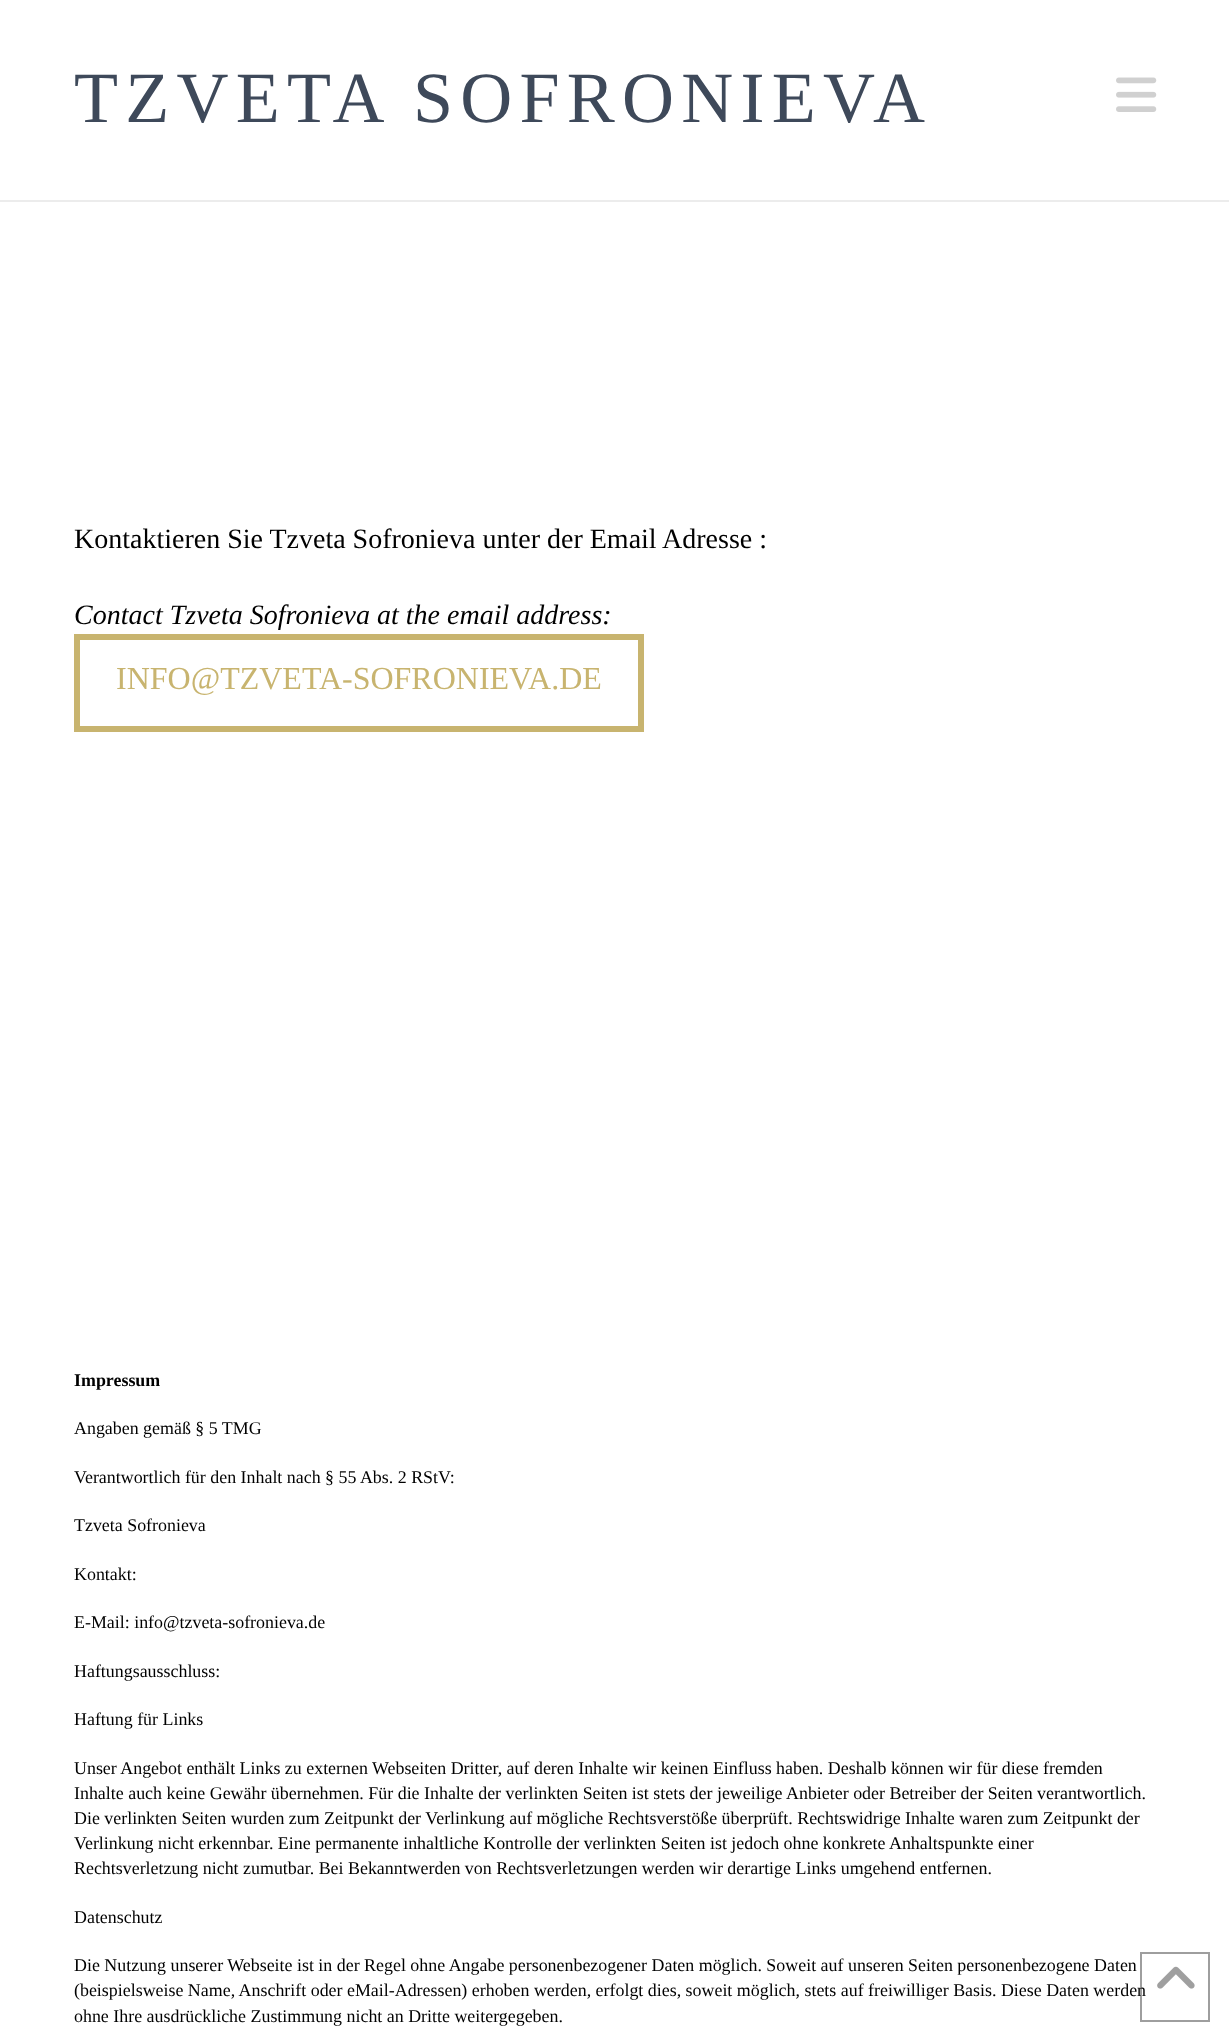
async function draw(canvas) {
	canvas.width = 1229;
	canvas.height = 2042;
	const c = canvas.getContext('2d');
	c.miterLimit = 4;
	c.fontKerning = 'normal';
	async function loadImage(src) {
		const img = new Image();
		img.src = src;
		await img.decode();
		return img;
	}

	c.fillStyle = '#fff';
	c.fillRect(0, 0, 1229, 2042);
	c.fillStyle = '#ececec';
	c.fillRect(0, 200, 1229, 2);
	c.letterSpacing = '7.25px';
	c.font = '72px Liberation Serif';
	c.fillStyle = '#3e495a';
	c.fillText('TZVETA SOFRONIEVA', 74, 122);
	c.drawImage(await loadImage('img1.png'), 1116, 77, 41, 35);
	c.letterSpacing = '0px';
	c.font = '28px Liberation Serif';
	c.fillStyle = '#000';
	c.fillText('Kontaktieren Sie Tzveta Sofronieva unter der Email Adresse :', 74, 548);
	c.font = 'italic 28px Liberation Serif';
	c.fillText('Contact Tzveta Sofronieva at the email address:', 74, 624);
	c.strokeStyle = '#c8b46f';
	c.lineWidth = 6;
	c.strokeRect(77, 637, 564, 92);
	c.font = '32px Liberation Serif';
	c.fillStyle = '#c8b46f';
	c.fillText('INFO@TZVETA-SOFRONIEVA.DE', 116, 689);
	c.font = 'bold 17.92px Liberation Serif';
	c.fillStyle = '#000';
	c.fillText('Impressum', 74, 1386);
	c.font = '17.92px Liberation Serif';
	for (const [text, x, y] of [
		['Angaben gemäß § 5 TMG', 74, 1434],
		['Verantwortlich für den Inhalt nach § 55 Abs. 2 RStV:', 74, 1483],
		['Tzveta Sofronieva', 74, 1531],
		['Kontakt:', 74, 1580],
		['E-Mail: info@tzveta-sofronieva.de', 74, 1628],
		['Haftungsausschluss:', 74, 1677],
		['Haftung für Links', 74, 1725],
		['Unser Angebot enthält Links zu externen Webseiten Dritter, auf deren Inhalte wir keinen Einfluss haben. Deshalb können wir für diese fremden', 74, 1774],
		['Inhalte auch keine Gewähr übernehmen. Für die Inhalte der verlinkten Seiten ist stets der jeweilige Anbieter oder Betreiber der Seiten verantwortlich.', 74, 1799],
		['Die verlinkten Seiten wurden zum Zeitpunkt der Verlinkung auf mögliche Rechtsverstöße überprüft. Rechtswidrige Inhalte waren zum Zeitpunkt der', 74, 1824],
		['Verlinkung nicht erkennbar. Eine permanente inhaltliche Kontrolle der verlinkten Seiten ist jedoch ohne konkrete Anhaltspunkte einer', 74, 1849],
		['Rechtsverletzung nicht zumutbar. Bei Bekanntwerden von Rechtsverletzungen werden wir derartige Links umgehend entfernen.', 74, 1874],
		['Datenschutz', 74, 1923],
		['Die Nutzung unserer Webseite ist in der Regel ohne Angabe personenbezogener Daten möglich. Soweit auf unseren Seiten personenbezogene Daten', 74, 1971],
		['(beispielsweise Name, Anschrift oder eMail-Adressen) erhoben werden, erfolgt dies, soweit möglich, stets auf freiwilliger Basis. Diese Daten werden', 74, 1996],
		['ohne Ihre ausdrückliche Zustimmung nicht an Dritte weitergegeben.', 74, 2022],
	]) {
		c.fillText(text, x, y);
	}
	c.strokeStyle = '#00000061';
	c.lineWidth = 2;
	c.strokeRect(1141, 1953, 68, 68);
	c.drawImage(await loadImage('img2.png'), 1157, 1966, 38, 23);
}

draw(document.querySelector('canvas'));
